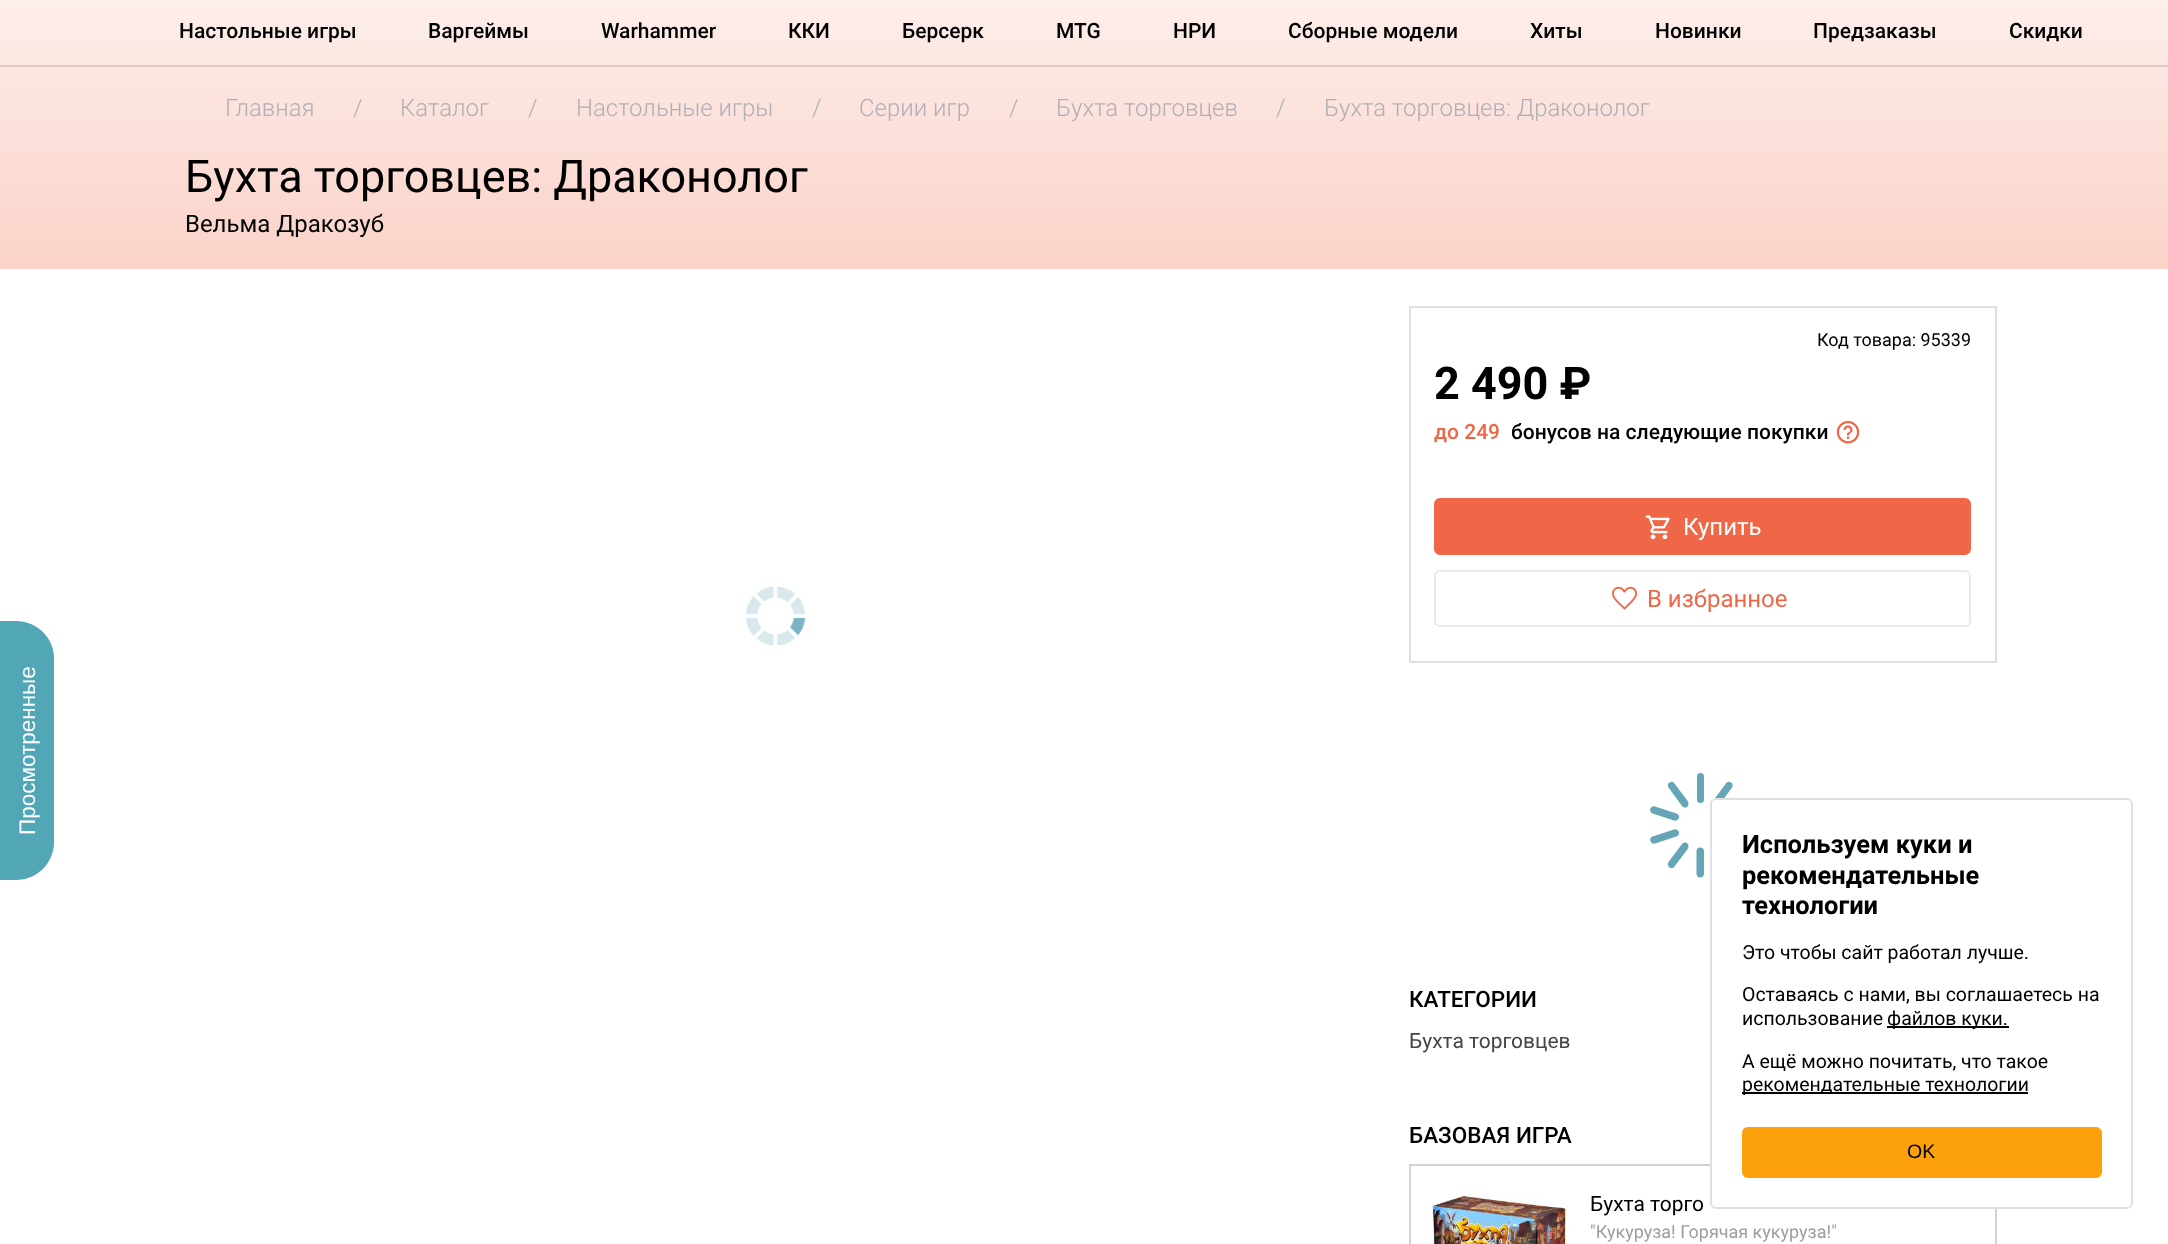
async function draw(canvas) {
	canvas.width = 2168;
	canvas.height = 1244;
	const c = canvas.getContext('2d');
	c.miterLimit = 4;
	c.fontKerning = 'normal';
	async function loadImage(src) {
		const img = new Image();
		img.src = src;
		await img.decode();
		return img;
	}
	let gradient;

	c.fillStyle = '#fff';
	c.fillRect(0, 0, 2168, 1244);
	gradient = c.createLinearGradient(1085, 269, 1085, -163);
	gradient.addColorStop(0, '#fad2c8');
	gradient.addColorStop(1, '#fff');
	c.fillStyle = gradient;
	c.fillRect(0, 0, 2168, 269);
	c.fillStyle = '#decbc7';
	c.fillRect(0, 65, 2168, 2);
	c.font = '500 21px Roboto';
	c.fillStyle = '#000';
	for (const [text, x, y] of [
		['Настольные игры', 179, 38],
		['Варгеймы', 428, 38],
		['Warhammer', 601, 38],
		['ККИ', 788, 38],
		['Берсерк', 902, 38],
		['MTG', 1056, 38],
		['НРИ', 1173, 38],
		['Сборные модели', 1288, 38],
		['Хиты', 1530, 38],
		['Новинки', 1655, 38],
		['Предзаказы', 1813, 38],
		['Скидки', 2009, 38],
	]) {
		c.fillText(text, x, y);
	}
	c.font = '300 24px Roboto';
	c.fillStyle = '#b0aeb7';
	for (const [text, x, y] of [
		['Главная', 225, 116],
		['/', 353, 116],
		['Каталог', 400, 116],
		['/', 528, 116],
		['Настольные игры', 576, 116],
		['/', 812, 116],
		['Серии игр', 859, 116],
		['/', 1009, 116],
		['Бухта торговцев', 1056, 116],
		['/', 1276, 116],
		['Бухта торговцев: Драконолог', 1324, 116],
	]) {
		c.fillText(text, x, y);
	}
	c.font = '45px Roboto';
	c.fillStyle = '#000';
	c.fillText('Бухта торговцев: Драконолог', 185, 192);
	c.font = '24px Roboto';
	c.fillText('Вельма Дракозуб', 185, 232);
	c.fillStyle = '#51a7b6';
	c.beginPath();
	c.moveTo(0, 880);
	c.lineTo(0, 621);
	c.lineTo(16, 621);
	c.bezierCurveTo(37, 621, 54, 638, 54, 658);
	c.lineTo(54, 842);
	c.bezierCurveTo(54, 863, 37, 880, 16, 880);
	c.closePath();
	c.fill();
	c.font = '22.5px Liberation Sans';
	c.fillStyle = '#fff';
	c.save();
	c.translate(35, 835);
	c.rotate(-90 * Math.PI / 180);
	c.fillText('Просмотренные', 0, 0);
	c.restore();
	c.drawImage(await loadImage('img1.png'), 745, 586, 61, 60);
	c.strokeStyle = '#dfdfdf';
	c.lineWidth = 2;
	c.strokeRect(1410, 307, 586, 355);
	c.font = '18px Roboto';
	c.fillStyle = '#000';
	c.fillText('Код товара: 95339', 1817, 346);
	c.font = 'bold 45px Roboto';
	c.fillText('2 490 ₽', 1434, 399);
	c.font = '500 21px Roboto';
	c.fillStyle = '#ef6747';
	c.fillText('до 249', 1434, 439);
	c.fillStyle = '#000';
	c.fillText('бонусов на следующие покупки', 1511, 439);
	c.drawImage(await loadImage('img2.png'), 1836, 420, 24, 24);
	c.fillStyle = '#ef6747';
	c.beginPath();
	c.roundRect(1435, 499, 535, 55, 5);
	c.fill();
	c.strokeStyle = '#ef6747';
	c.stroke();
	c.drawImage(await loadImage('img3.png'), 1645, 515, 25, 25);
	c.font = '24px Roboto';
	c.fillStyle = '#fff';
	c.fillText('Купить', 1683, 535);
	c.beginPath();
	c.roundRect(1435, 571, 535, 55, 5);
	c.strokeStyle = '#eaeaea';
	c.stroke();
	c.drawImage(await loadImage('img4.png'), 1612, 586, 25, 24);
	c.fillStyle = '#ef6747';
	c.fillText('В избранное', 1647, 607);
	c.fillStyle = '#64a6b5';
	c.beginPath();
	c.moveTo(1700, 877.5);
	c.bezierCurveTo(1698, 877.5, 1696.5, 876, 1696.5, 873.5);
	c.lineTo(1696.5, 851);
	c.bezierCurveTo(1696.5, 849, 1698, 847.5, 1700, 847.5);
	c.bezierCurveTo(1702.5, 847.5, 1704, 849, 1704, 851);
	c.lineTo(1704, 873.5);
	c.bezierCurveTo(1704, 876, 1702.5, 877.5, 1700, 877.5);
	c.closePath();
	c.moveTo(1669.5, 867.5);
	c.bezierCurveTo(1667.5, 866, 1667.5, 864, 1668.5, 862);
	c.lineTo(1682, 844);
	c.bezierCurveTo(1683, 842.5, 1685.5, 842, 1687, 843);
	c.bezierCurveTo(1688.5, 844.5, 1689, 846.5, 1688, 848.5);
	c.lineTo(1674.5, 866.5);
	c.bezierCurveTo(1673.5, 868.5, 1671, 868.5, 1669.5, 867.5);
	c.closePath();
	c.fill();
	c.beginPath();
	c.moveTo(1650.5, 841);
	c.bezierCurveTo(1649.5, 839, 1651, 837, 1652.5, 836.5);
	c.lineTo(1674, 829.5);
	c.bezierCurveTo(1676, 829, 1678, 830, 1679, 832);
	c.bezierCurveTo(1679.5, 834, 1678.5, 836, 1676.5, 836.5);
	c.lineTo(1655, 843.5);
	c.bezierCurveTo(1653, 844, 1651, 843, 1650.5, 841);
	c.closePath();
	c.moveTo(1650.5, 808.5);
	c.bezierCurveTo(1651, 807, 1653, 805.5, 1655, 806.5);
	c.lineTo(1676.5, 813.5);
	c.bezierCurveTo(1678.5, 814, 1679.5, 816, 1679, 818);
	c.bezierCurveTo(1678, 820, 1676, 821, 1674, 820.5);
	c.lineTo(1652.5, 813.5);
	c.bezierCurveTo(1651, 813, 1649.5, 810.5, 1650.5, 808.5);
	c.closePath();
	c.fill();
	c.beginPath();
	c.moveTo(1669.5, 782.5);
	c.bezierCurveTo(1671, 781.5, 1673.5, 781.5, 1674.5, 783.5);
	c.lineTo(1688, 801.5);
	c.bezierCurveTo(1689, 803, 1688.5, 805.5, 1687, 807);
	c.bezierCurveTo(1685.5, 808, 1683, 807.5, 1682, 806);
	c.lineTo(1668.5, 787.5);
	c.bezierCurveTo(1667.5, 786, 1667.5, 783.5, 1669.5, 782.5);
	c.closePath();
	c.fill();
	c.beginPath();
	c.roundRect(1697, 773, 7, 30, 3.5);
	c.fill();
	c.beginPath();
	c.moveTo(1731, 782.5);
	c.bezierCurveTo(1733, 783.5, 1733, 786, 1732, 787.5);
	c.lineTo(1718.5, 806);
	c.bezierCurveTo(1717.5, 807.5, 1715, 808, 1713.5, 807);
	c.bezierCurveTo(1712, 805.5, 1711.5, 803, 1712.5, 801.5);
	c.lineTo(1726, 783.5);
	c.bezierCurveTo(1727, 781.5, 1729.5, 781.5, 1731, 782.5);
	c.closePath();
	c.fill();
	c.font = '500 22.5px Roboto';
	c.fillStyle = '#000';
	c.fillText('КАТЕГОРИИ', 1409, 1007);
	c.font = '21px Roboto';
	c.fillStyle = '#484644';
	c.fillText('Бухта торговцев', 1409, 1048);
	c.font = '500 22.5px Roboto';
	c.fillStyle = '#000';
	c.fillText('БАЗОВАЯ ИГРА', 1409, 1143);
	c.strokeStyle = '#d3d2d3';
	c.strokeRect(1410, 1165, 586, 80);
	c.drawImage(await loadImage('img5.png'), 1430, 1195, 139, 49);
	c.font = '21px Roboto';
	c.fillText('Бухта торго', 1590, 1211);
	c.font = '18px Roboto';
	c.fillStyle = '#9e9e9e';
	c.fillText('"Кукуруза! Горячая кукуруза!"', 1590, 1238);
	c.fillStyle = '#fff';
	c.beginPath();
	c.roundRect(1711, 799, 421, 409, 5);
	c.fill();
	c.strokeStyle = '#e0e0e0';
	c.stroke();
	c.font = 'bold 25.5px Roboto';
	c.fillStyle = '#000';
	for (const [text, x, y] of [
		['Используем куки и', 1742, 853],
		['рекомендательные', 1742, 884],
		['технологии', 1742, 914],
	]) {
		c.fillText(text, x, y);
	}
	c.font = '19.5px Roboto';
	for (const [text, x, y] of [
		['Это чтобы сайт работал лучше.', 1742, 959],
		['Оставаясь с нами, вы соглашаетесь на', 1742, 1001],
		['использование', 1742, 1025],
	]) {
		c.fillText(text, x, y);
	}
	c.fillRect(1887, 1026, 122, 2);
	c.fillText('файлов куки.', 1887, 1025);
	c.fillText('А ещё можно почитать, что такое', 1742, 1068);
	c.fillRect(1742, 1092, 286, 2);
	c.fillText('рекомендательные технологии', 1742, 1091);
	c.fillStyle = '#fca10b';
	c.beginPath();
	c.roundRect(1742, 1127, 360, 51, 6);
	c.fill();
	c.font = '19.5px Liberation Sans';
	c.fillStyle = '#000';
	c.fillText('OK', 1907, 1158);
}

draw(document.querySelector('canvas'));
